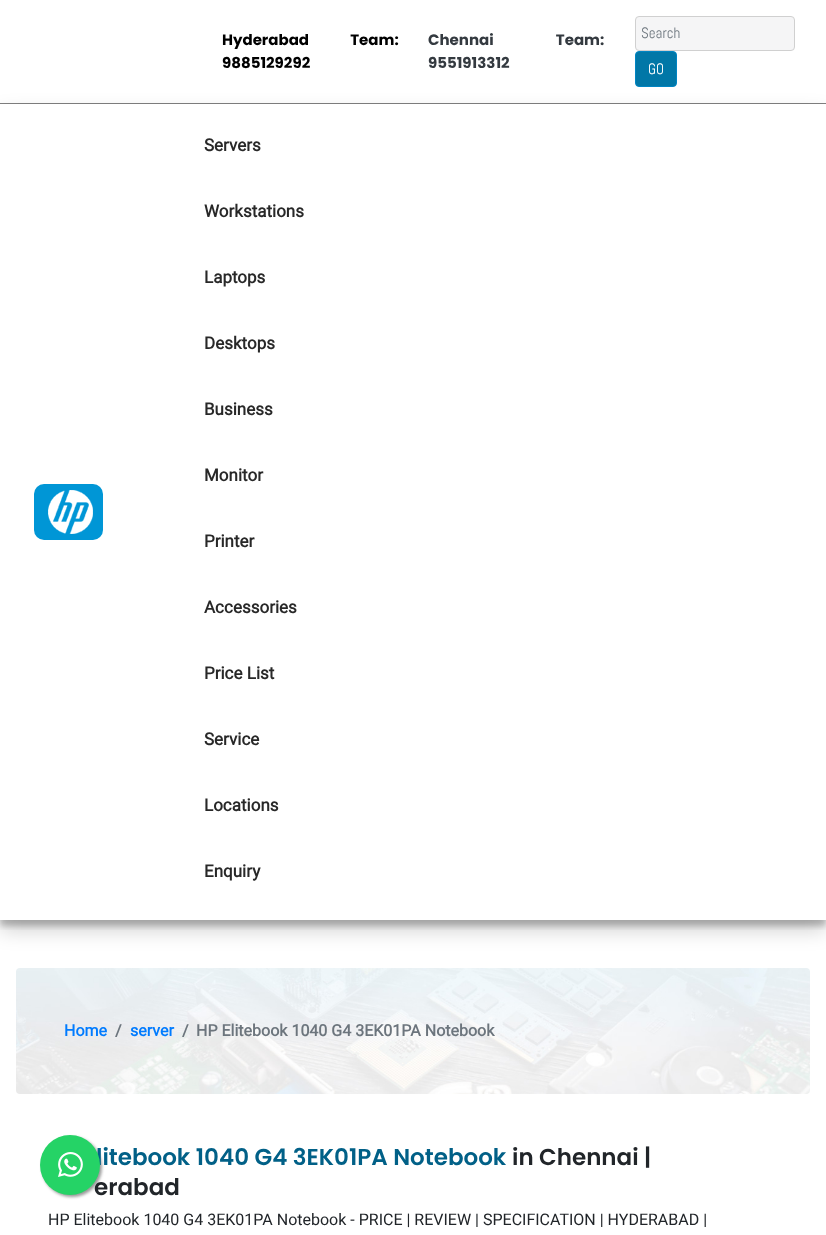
async function draw(canvas) {
	canvas.width = 826;
	canvas.height = 1235;
	const c = canvas.getContext('2d');
	c.miterLimit = 4;
	c.fontKerning = 'normal';
	async function loadImage(src) {
		const img = new Image();
		img.src = src;
		await img.decode();
		return img;
	}

	c.fillStyle = '#fff';
	c.fillRect(0, 0, 826, 1235);
	c.fillStyle = '#808080';
	c.fillRect(0, 103, 826, 1);
	c.wordSpacing = '38px';
	c.font = 'bold 15px Poppins';
	c.fillStyle = '#000';
	c.fillText('Hyderabad Team:', 222, 45);
	c.wordSpacing = '0px';
	c.fillText('9885129292', 222, 68);
	c.wordSpacing = '59px';
	c.fillStyle = '#343a40';
	c.fillText('Chennai Team:', 428, 45);
	c.wordSpacing = '0px';
	c.fillText('9551913312', 428, 68);
	c.fillStyle = '#f5f5f6';
	c.beginPath();
	c.roundRect(635.5, 16.5, 159, 34, 3.5);
	c.fill();
	c.strokeStyle = '#d0d0d0';
	c.stroke();
	c.font = '15px Abel';
	c.fillStyle = '#6c757d';
	c.fillText('Search', 641, 38);
	c.save();
	c.beginPath();
	c.moveTo(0, 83);
	c.lineTo(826, 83);
	c.lineTo(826, 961);
	c.lineTo(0, 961);
	c.closePath();
	c.moveTo(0, 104);
	c.lineTo(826, 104);
	c.lineTo(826, 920);
	c.lineTo(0, 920);
	c.closePath();
	c.clip('evenodd');
	c.fillStyle = '#00000030';
	c.filter = 'blur(10px)';
	c.beginPath();
	c.rect(0, 114, 826, 816);
	c.fill();
	c.filter = 'none';
	c.restore();
	c.fillStyle = '#0177a7';
	c.beginPath();
	c.roundRect(635.5, 51.5, 41, 35, 3.5);
	c.fill();
	c.strokeStyle = '#0085c3';
	c.stroke();
	c.fillStyle = '#fff';
	c.fillText('GO', 648, 74);
	c.save();
	c.beginPath();
	c.rect(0, 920, 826, 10);
	c.clip();
	c.fillStyle = '#0000003b';
	c.filter = 'blur(3px)';
	c.beginPath();
	c.rect(0, 110, 826, 816);
	c.fill();
	c.filter = 'none';
	c.restore();
	c.drawImage(await loadImage('img1.png'), 34, 484, 69, 56);
	c.font = 'bold 17px Roboto';
	c.fillStyle = '#282828';
	for (const [text, x, y] of [
		['Servers', 204, 151],
		['Workstations', 204, 217],
		['Laptops', 204, 283],
		['Desktops', 204, 349],
		['Business', 204, 415],
		['Monitor', 204, 481],
		['Printer', 204, 547],
		['Accessories', 204, 613],
		['Price List', 204, 679],
		['Service', 204, 745],
		['Locations', 204, 811],
		['Enquiry', 204, 877],
	]) {
		c.fillText(text, x, y);
	}
	c.drawImage(await loadImage('img2.png'), 16, 968, 794, 126);
	c.font = 'bold 16px Roboto';
	c.fillStyle = '#007bff';
	c.fillText('Home', 64, 1036);
	c.fillStyle = '#6c757d';
	c.fillText('/', 115, 1036);
	c.fillStyle = '#007bff';
	c.fillText('server', 130, 1036);
	c.fillStyle = '#6c757d';
	c.fillText('/', 182, 1036);
	c.fillText('HP Elitebook 1040 G4 3EK01PA Notebook', 196, 1036);
	c.fillStyle = '#999';
	c.filter = 'blur(1.5px)';
	c.beginPath();
	c.roundRect(42, 1137, 60, 60, 30);
	c.fill();
	c.filter = 'none';
	c.font = '600 23px Poppins';
	c.fillStyle = '#016087';
	c.fillText('litebook 1040 G4 3EK01PA Notebook', 96, 1165);
	c.fillStyle = '#212529';
	c.fillText('erabad', 94, 1195);
	c.fillStyle = '#25d366';
	c.beginPath();
	c.arc(70, 1165, 30, 0, 2 * Math.PI);
	c.fill();
	c.drawImage(await loadImage('img3.png'), 58, 1152, 25, 25);
	c.fillStyle = '#212529';
	c.fillText('in Chennai |', 512, 1165);
	c.font = '16px Roboto';
	c.fillText('HP Elitebook 1040 G4 3EK01PA Notebook - PRICE | REVIEW | SPECIFICATION | HYDERABAD |', 48, 1225);
}

draw(document.querySelector('canvas'));
